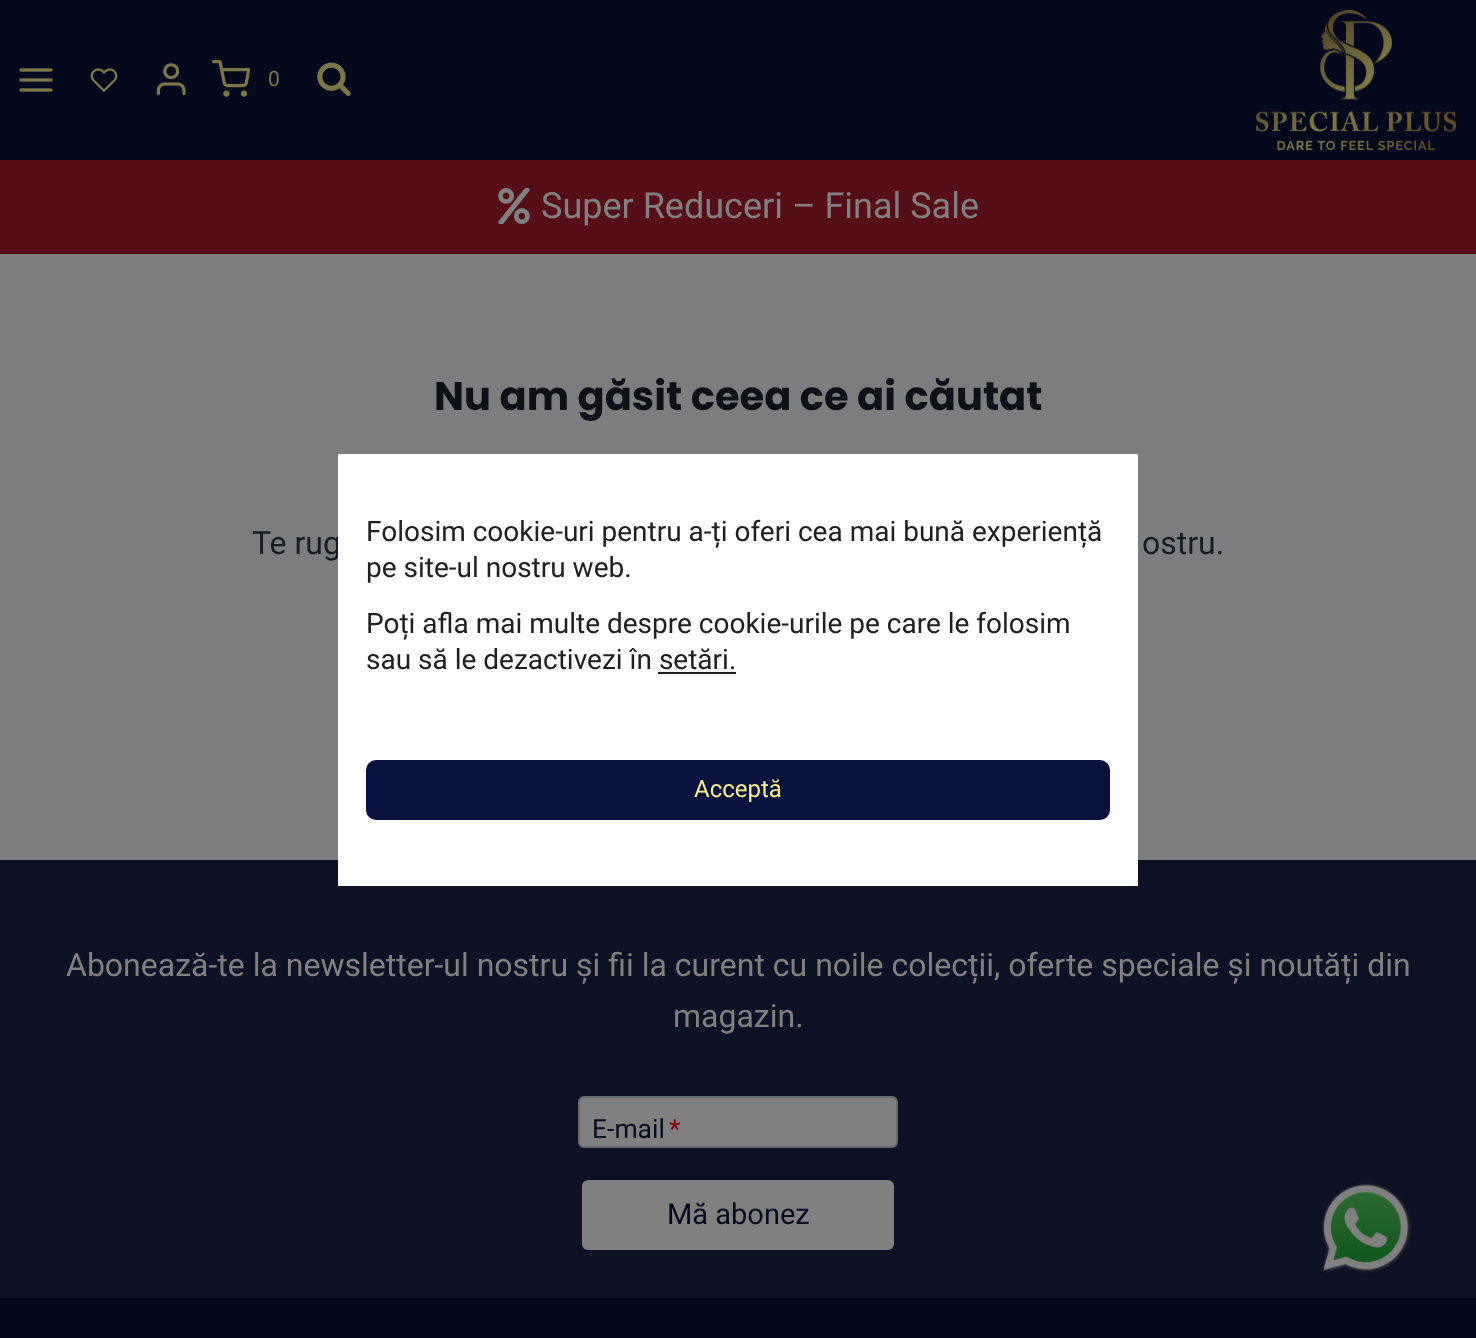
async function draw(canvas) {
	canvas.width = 1476;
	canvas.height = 1338;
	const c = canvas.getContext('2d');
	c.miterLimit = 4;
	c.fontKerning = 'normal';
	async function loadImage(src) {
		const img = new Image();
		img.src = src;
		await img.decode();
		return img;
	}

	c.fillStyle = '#7c7d7e';
	c.fillRect(0, 0, 1476, 1338);
	c.fillStyle = '#05091e';
	c.fillRect(0, 0, 1476, 160);
	c.drawImage(await loadImage('img1.png'), 19, 68, 34, 24);
	c.drawImage(await loadImage('img2.png'), 90, 68, 28, 24);
	c.drawImage(await loadImage('img3.png'), 156, 63, 30, 33);
	c.drawImage(await loadImage('img4.png'), 212, 60, 38, 37);
	c.font = '21px Roboto';
	c.fillStyle = '#7d7747';
	c.fillText('0', 268, 86);
	c.drawImage(await loadImage('img5.png'), 317, 62, 34, 34);
	c.drawImage(await loadImage('img6.png'), 1256, 10, 200, 140);
	c.fillStyle = '#560e16';
	c.fillRect(0, 160, 1476, 94);
	c.drawImage(await loadImage('img7.png'), 498, 188, 32, 36);
	c.font = '36px Roboto';
	c.fillStyle = '#808080';
	c.fillText('Super Reduceri – Final Sale', 541, 218);
	c.font = 'bold 40px Poppins';
	c.fillStyle = '#0d1016';
	c.fillText('Nu am găsit ceea ce ai căutat', 434, 410);
	c.font = '32px Roboto';
	c.fillStyle = '#171c24';
	c.fillText('Te rug', 252, 554);
	c.fillText('ostru.', 1142, 554);
	c.fillStyle = '#0d1125';
	c.fillRect(0, 860, 1476, 438);
	c.fillStyle = '#808080';
	c.fillText('Abonează-te la newsletter-ul nostru și fii la curent cu noile colecții, oferte speciale și noutăți din', 66, 976);
	c.fillText('magazin.', 673, 1027);
	c.beginPath();
	c.roundRect(579, 1097, 318, 50, 5);
	c.fill();
	c.strokeStyle = '#666b70';
	c.lineWidth = 2;
	c.stroke();
	c.font = '26.5px Roboto';
	c.fillStyle = '#05091e';
	c.fillText('E-mail', 592, 1138);
	c.fillStyle = '#800000';
	c.fillText('*', 669, 1138);
	c.fillStyle = '#808080';
	c.beginPath();
	c.roundRect(582, 1180, 312, 70, 6);
	c.fill();
	c.font = '29px Roboto';
	c.fillStyle = '#05091e';
	c.fillText('Mă abonez', 667, 1224);
	c.fillRect(0, 1298, 1476, 40);
	c.fillStyle = '#fff';
	c.fillRect(338, 454, 800, 432);
	c.font = '28px Roboto';
	c.fillStyle = '#202020';
	for (const [text, x, y] of [
		['Folosim cookie-uri pentru a-ți oferi cea mai bună experiență', 366, 541],
		['pe site-ul nostru web.', 366, 577],
		['Poți afla mai multe despre cookie-urile pe care le folosim', 366, 633],
		['sau să le dezactivezi în setări.', 366, 669],
	]) {
		c.fillText(text, x, y);
	}
	c.fillRect(658, 672, 78, 2);
	c.fillStyle = '#09123c';
	c.beginPath();
	c.roundRect(366, 760, 744, 60, 10);
	c.fill();
	c.font = '24px Roboto';
	c.fillStyle = '#f9ee8d';
	c.fillText('Acceptă', 694, 797);
	c.drawImage(await loadImage('img8.png'), 1321, 1182, 91, 91);
}

draw(document.querySelector('canvas'));
